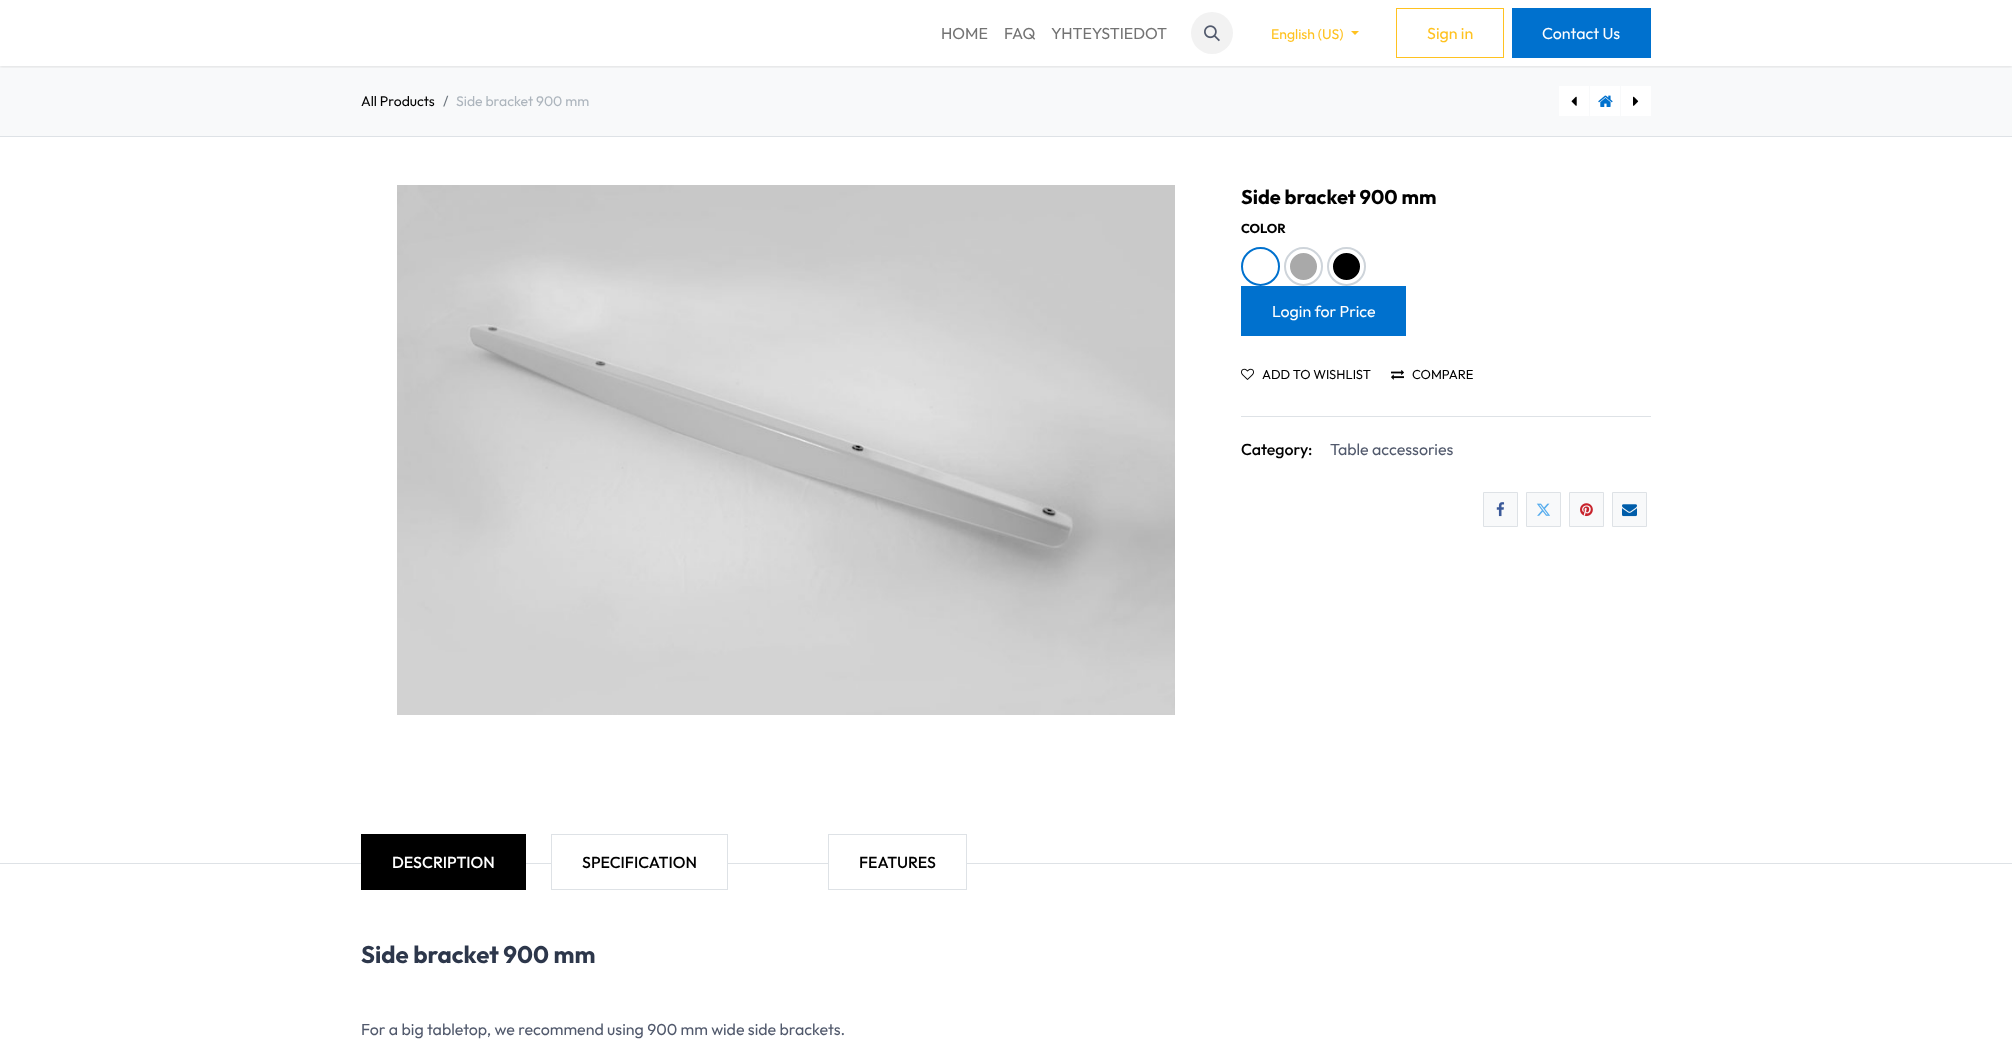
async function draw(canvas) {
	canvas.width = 2012;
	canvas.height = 1058;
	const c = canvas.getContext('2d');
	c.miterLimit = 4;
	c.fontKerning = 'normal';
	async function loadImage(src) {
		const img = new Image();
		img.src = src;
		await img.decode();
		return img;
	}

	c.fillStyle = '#fff';
	c.fillRect(0, 0, 2012, 1058);
	c.fillStyle = '#f8f9fa';
	c.fillRect(0, 66, 2012, 70);
	c.save();
	c.beginPath();
	c.rect(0, 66, 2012, 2);
	c.clip();
	c.fillStyle = '#0000001a';
	c.filter = 'blur(1.5px)';
	c.beginPath();
	c.rect(0, 1, 2012, 66);
	c.fill();
	c.filter = 'none';
	c.restore();
	c.font = '16px Outfit';
	c.fillStyle = '#737373';
	for (const [text, x, y] of [
		['HOME', 941, 39],
		['FAQ', 1004, 39],
		['YHTEYSTIEDOT', 1051, 39],
	]) {
		c.fillText(text, x, y);
	}
	c.fillStyle = '#f2f2f2';
	c.beginPath();
	c.arc(1212, 33, 21, 0, 2 * Math.PI);
	c.fill();
	c.drawImage(await loadImage('img1.png'), 1204, 25, 16, 17);
	c.font = '14px Outfit';
	c.fillStyle = '#ffc220';
	c.fillText('English (US)', 1271, 39);
	c.beginPath();
	c.moveTo(1351, 31);
	c.lineTo(1359, 31);
	c.lineTo(1355, 35);
	c.closePath();
	c.fill();
	c.strokeStyle = '#ffc220';
	c.strokeRect(1396.5, 8.5, 107, 49);
	c.font = '16px Outfit';
	c.fillText('Sign in', 1427, 39);
	c.fillStyle = '#0071ce';
	c.fillRect(1512, 8, 139, 50);
	c.fillStyle = '#fff';
	c.fillText('Contact Us', 1542, 39);
	c.fillStyle = '#dee2e6';
	c.fillRect(0, 136, 2012, 1);
	c.font = '14px Outfit';
	c.fillStyle = '#000';
	c.fillText('All Products', 361, 106);
	c.fillStyle = '#6c757d';
	c.fillText('/', 443, 106);
	c.fillStyle = '#adb5bd';
	c.fillText('Side bracket 900 mm', 456, 106);
	c.fillStyle = '#fff';
	c.fillRect(1559, 86, 30, 30);
	c.drawImage(await loadImage('img2.png'), 1571, 96, 6, 10);
	c.fillRect(1590, 86, 30, 30);
	c.drawImage(await loadImage('img3.png'), 1598, 95, 15, 12);
	c.fillRect(1621, 86, 30, 30);
	c.drawImage(await loadImage('img4.png'), 1633, 96, 6, 10);
	c.drawImage(await loadImage('img5.png'), 397, 185, 778, 530);
	c.font = 'bold 20px Outfit';
	c.fillStyle = '#000';
	c.fillText('Side bracket 900 mm', 1241, 204);
	c.font = 'bold 13px Outfit';
	c.fillText('COLOR', 1241, 233);
	c.beginPath();
	c.arc(1260.5, 266.5, 17, 0, 2 * Math.PI);
	c.strokeStyle = '#0071ce';
	c.lineWidth = 5;
	c.stroke();
	c.beginPath();
	c.arc(1260.5, 266.5, 15.5, 0, 2 * Math.PI);
	c.strokeStyle = '#fff';
	c.lineWidth = 4;
	c.stroke();
	c.fillStyle = '#a9a9a9';
	c.beginPath();
	c.arc(1303.5, 266.5, 17, 0, 2 * Math.PI);
	c.fill();
	c.strokeStyle = '#ced4da';
	c.lineWidth = 5;
	c.stroke();
	c.beginPath();
	c.arc(1303.5, 266.5, 15.5, 0, 2 * Math.PI);
	c.strokeStyle = '#fff';
	c.lineWidth = 4;
	c.stroke();
	c.fillStyle = '#000';
	c.beginPath();
	c.arc(1346.5, 266.5, 17, 0, 2 * Math.PI);
	c.fill();
	c.strokeStyle = '#ced4da';
	c.lineWidth = 5;
	c.stroke();
	c.beginPath();
	c.arc(1346.5, 266.5, 15.5, 0, 2 * Math.PI);
	c.strokeStyle = '#fff';
	c.lineWidth = 4;
	c.stroke();
	c.fillStyle = '#0071ce';
	c.fillRect(1241, 286, 165, 50);
	c.font = '16px Outfit';
	c.fillStyle = '#fff';
	c.fillText('Login for Price', 1272, 317);
	c.drawImage(await loadImage('img6.png'), 1241, 368, 13, 12);
	c.font = '13px Outfit';
	c.fillStyle = '#000';
	c.fillText('ADD TO WISHLIST', 1262, 379);
	c.drawImage(await loadImage('img7.png'), 1391, 370, 13, 10);
	c.fillText('COMPARE', 1412, 379);
	c.fillStyle = '#dee2e6';
	c.fillRect(1241, 416, 410, 1);
	c.font = '500 16px Outfit';
	c.fillStyle = '#000';
	c.fillText('Category:', 1241, 455);
	c.font = '16px Outfit';
	c.fillStyle = '#51596c';
	c.fillText('Table accessories', 1330, 455);
	c.fillStyle = '#f8f9fa';
	c.beginPath();
	c.rect(1483.5, 492.5, 34, 34);
	c.fill();
	c.strokeStyle = '#dee2e6';
	c.lineWidth = 1;
	c.stroke();
	c.drawImage(await loadImage('img8.png'), 1496, 502, 9, 15);
	c.beginPath();
	c.rect(1526.5, 492.5, 34, 34);
	c.fill();
	c.stroke();
	c.drawImage(await loadImage('img9.png'), 1536, 503, 14, 13);
	c.beginPath();
	c.rect(1569.5, 492.5, 34, 34);
	c.fill();
	c.stroke();
	c.drawImage(await loadImage('img10.png'), 1580, 503, 13, 14);
	c.beginPath();
	c.rect(1612.5, 492.5, 34, 34);
	c.fill();
	c.stroke();
	c.drawImage(await loadImage('img11.png'), 1622, 504, 15, 13);
	c.fillStyle = '#dee2e6';
	c.fillRect(0, 863, 2012, 1);
	c.fillStyle = '#000';
	c.fillRect(361, 834, 165, 56);
	c.font = '500 16px Outfit';
	c.fillStyle = '#fff';
	c.fillText('DESCRIPTION', 392, 868);
	c.fillRect(552, 863, 175, 1);
	c.strokeRect(551.5, 834.5, 176, 55);
	c.fillStyle = '#000';
	c.fillText('SPECIFICATION', 582, 868);
	c.fillStyle = '#fff';
	c.fillRect(829, 863, 137, 1);
	c.strokeRect(828.5, 834.5, 138, 55);
	c.fillStyle = '#000';
	c.fillText('FEATURES', 859, 868);
	c.font = 'bold 24px Outfit';
	c.fillStyle = '#2d374b';
	c.fillText('Side bracket 900 mm', 361, 963);
	c.font = '16px Outfit';
	c.fillStyle = '#51596c';
	c.fillText('For a big tabletop, we recommend using 900 mm wide side brackets.', 361, 1035);
}

draw(document.querySelector('canvas'));
